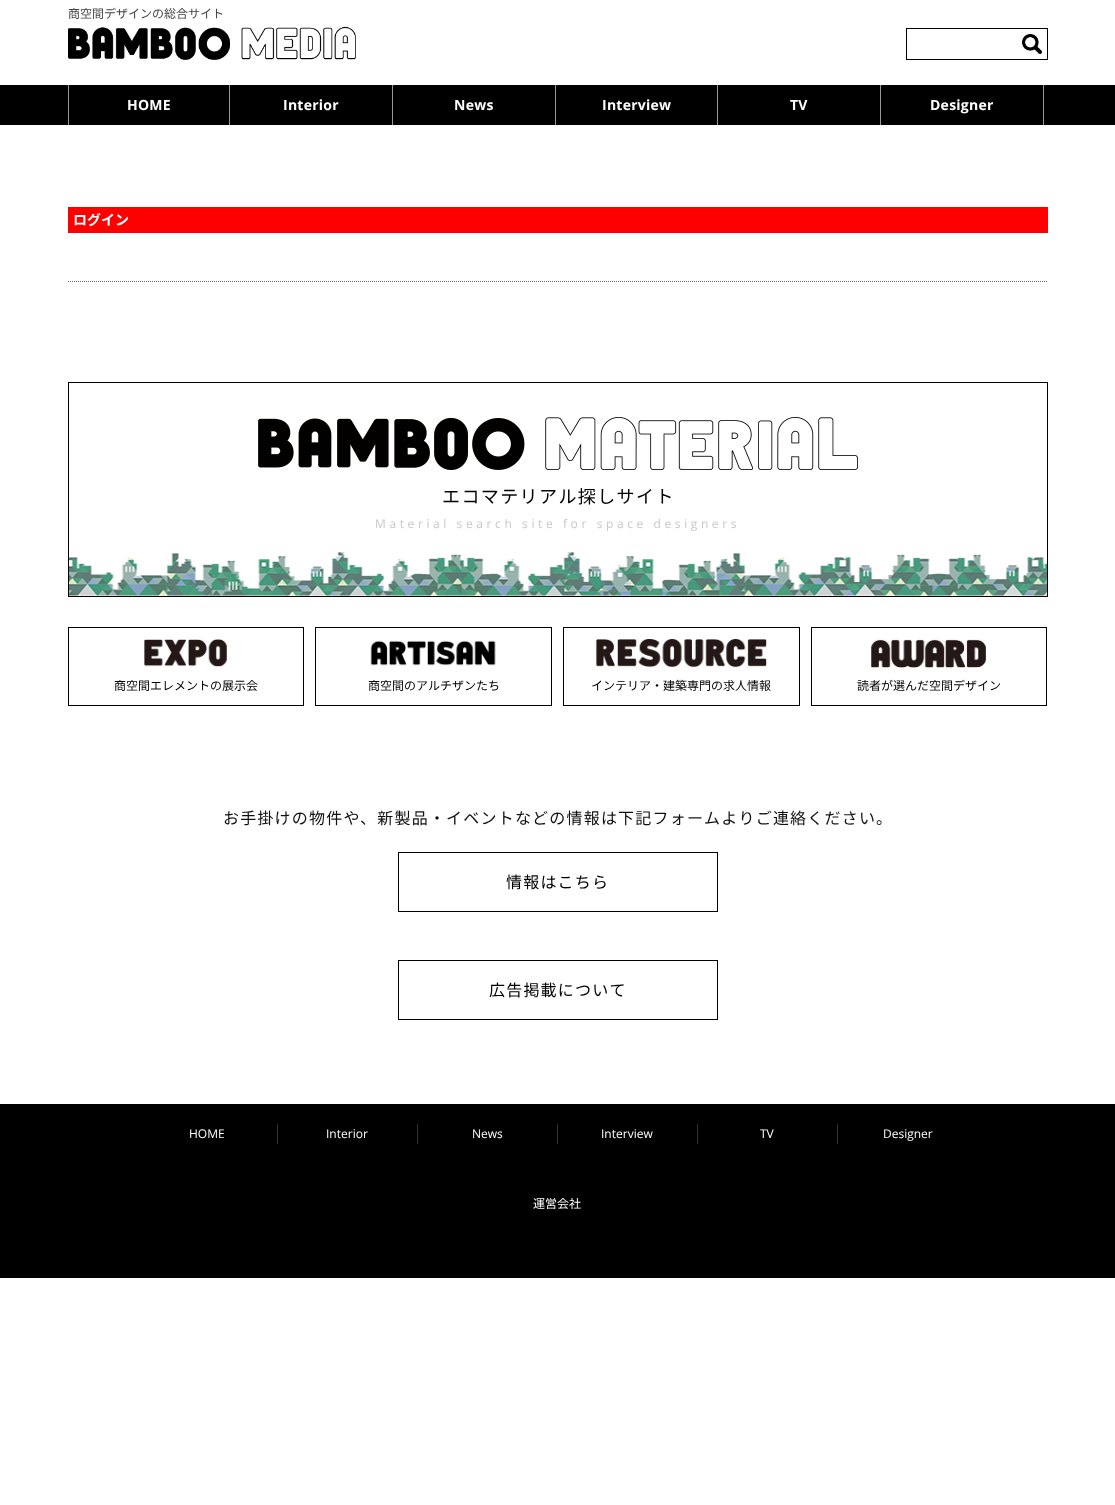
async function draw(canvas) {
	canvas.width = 1115;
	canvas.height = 1505;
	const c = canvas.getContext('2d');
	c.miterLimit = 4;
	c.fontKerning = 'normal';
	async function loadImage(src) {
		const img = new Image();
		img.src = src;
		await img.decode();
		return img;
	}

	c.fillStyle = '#fff';
	c.fillRect(0, 0, 1115, 1505);
	c.font = '12px Noto Sans JP';
	c.fillStyle = '#444';
	c.fillText('商空間デザインの総合サイト', 68, 18);
	c.drawImage(await loadImage('img1.png'), 68, 26, 288, 34);
	c.strokeStyle = '#000';
	c.strokeRect(906.5, 28.5, 141, 31);
	c.drawImage(await loadImage('img2.png'), 1022, 34, 20, 20);
	for (const [x, y, w, h, color] of [
		[0, 85, 1115, 40, '#000'],
		[229, 85, 1, 40, '#999'],
		[68, 85, 1, 40, '#999'],
	]) {
		c.fillStyle = color;
		c.fillRect(x, y, w, h);
	}
	c.letterSpacing = '0.25px';
	c.font = 'bold 14px Open Sans';
	c.fillStyle = '#fff';
	c.fillText('HOME', 127, 110);
	c.fillStyle = '#999';
	c.fillRect(392, 85, 1, 40);
	c.fillStyle = '#fff';
	c.fillText('Interior', 283, 110);
	c.fillStyle = '#999';
	c.fillRect(555, 85, 1, 40);
	c.fillStyle = '#fff';
	c.fillText('News', 454, 110);
	c.fillStyle = '#999';
	c.fillRect(717, 85, 1, 40);
	c.fillStyle = '#fff';
	c.fillText('Interview', 602, 110);
	c.fillStyle = '#999';
	c.fillRect(880, 85, 1, 40);
	c.fillStyle = '#fff';
	c.fillText('TV', 790, 110);
	c.fillStyle = '#999';
	c.fillRect(1043, 85, 1, 40);
	c.fillStyle = '#fff';
	c.fillText('Designer', 930, 110);
	c.beginPath();
	c.moveTo(68, 281.5);
	c.lineTo(1048, 281.5);
	c.strokeStyle = '#666';
	c.setLineDash([1, 1]);
	c.stroke();
	c.fillStyle = '#f00';
	c.fillRect(68, 207, 980, 26);
	c.letterSpacing = '0px';
	c.font = 'bold 14px Noto Sans JP';
	c.fillStyle = '#fff';
	c.fillText('ログイン', 73, 225);
	c.drawImage(await loadImage('img3.png'), 69, 552, 978, 44);
	c.strokeStyle = '#000';
	c.setLineDash([]);
	c.strokeRect(68.5, 382.5, 979, 214);
	c.drawImage(await loadImage('img4.png'), 258, 417, 600, 53);
	c.letterSpacing = '1.4px';
	c.font = '18px Noto Sans JP';
	c.fillStyle = '#000';
	c.fillText('エコマテリアル探しサイト', 442, 503);
	c.letterSpacing = '3.6px';
	c.font = '12px Open Sans';
	c.fillStyle = '#c8c8c8';
	c.fillText('Material search site for space designers', 375, 528);
	c.strokeRect(68.5, 627.5, 235, 78);
	c.drawImage(await loadImage('img5.png'), 144, 639, 83, 28);
	c.letterSpacing = '0px';
	c.font = '12px Noto Sans JP';
	c.fillStyle = '#000';
	c.fillText('商空間エレメントの展示会', 114, 690);
	c.strokeRect(315.5, 627.5, 236, 78);
	c.drawImage(await loadImage('img6.png'), 370, 640, 126, 26);
	c.fillText('商空間のアルチザンたち', 368, 690);
	c.strokeRect(563.5, 627.5, 236, 78);
	c.drawImage(await loadImage('img7.png'), 595, 639, 172, 29);
	c.fillText('インテリア・建築専門の求人情報', 591, 690);
	c.strokeRect(811.5, 627.5, 235, 78);
	c.drawImage(await loadImage('img8.png'), 871, 639, 115, 29);
	c.fillText('読者が選んだ空間デザイン', 857, 690);
	c.letterSpacing = '1.2px';
	c.font = '16px Noto Sans JP';
	c.fillStyle = '#111';
	c.fillText('お手掛けの物件や、新製品・イベントなどの情報は下記フォームよりご連絡ください。', 223, 824);
	c.strokeRect(398.5, 852.5, 319, 59);
	c.fillStyle = '#000';
	c.fillText('情報はこちら', 506, 888);
	c.strokeRect(398.5, 960.5, 319, 59);
	c.fillText('広告掲載について', 489, 996);
	c.fillRect(0, 1104, 1115, 174);
	c.fillStyle = '#333';
	c.fillRect(277, 1124, 1, 20);
	c.letterSpacing = '0px';
	c.font = '12px Open Sans';
	c.fillStyle = '#fff';
	c.fillText('HOME', 189, 1138);
	c.fillStyle = '#333';
	c.fillRect(417, 1124, 1, 20);
	c.fillStyle = '#fff';
	c.fillText('Interior', 326, 1138);
	c.fillStyle = '#333';
	c.fillRect(557, 1124, 1, 20);
	c.fillStyle = '#fff';
	c.fillText('News', 472, 1138);
	c.fillStyle = '#333';
	c.fillRect(697, 1124, 1, 20);
	c.fillStyle = '#fff';
	c.fillText('Interview', 601, 1138);
	c.fillStyle = '#333';
	c.fillRect(837, 1124, 1, 20);
	c.fillStyle = '#fff';
	c.fillText('TV', 760, 1138);
	c.fillText('Designer', 883, 1138);
	c.font = '12px Noto Sans JP';
	c.fillText('運営会社', 533, 1208);
}

draw(document.querySelector('canvas'));
